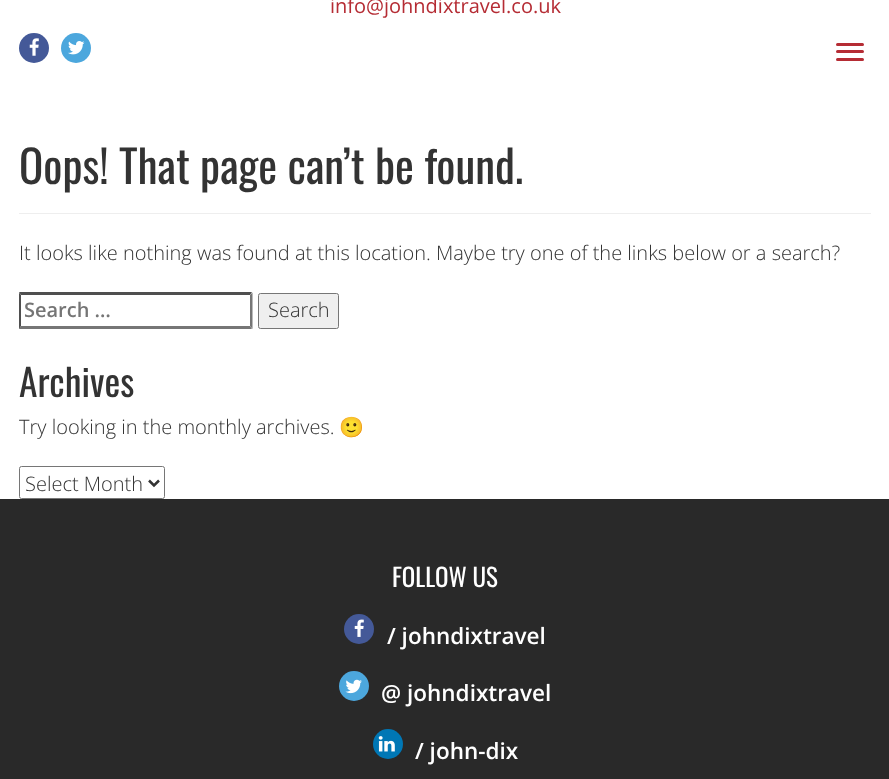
async function draw(canvas) {
	canvas.width = 889;
	canvas.height = 779;
	const c = canvas.getContext('2d');
	c.miterLimit = 4;
	c.fontKerning = 'normal';
	async function loadImage(src) {
		const img = new Image();
		img.src = src;
		await img.decode();
		return img;
	}

	c.fillStyle = '#fff';
	c.fillRect(0, 0, 889, 779);
	c.font = '20px Open Sans';
	c.fillStyle = '#b52c34';
	c.fillText('info@johndixtravel.co.uk', 330, 13);
	c.fillStyle = '#445998';
	c.beginPath();
	c.arc(34, 48, 15, 0, 2 * Math.PI);
	c.fill();
	c.drawImage(await loadImage('img1.png'), 29, 38, 10, 18);
	c.fillStyle = '#4ca7dd';
	c.beginPath();
	c.arc(76, 48, 15, 0, 2 * Math.PI);
	c.fill();
	c.drawImage(await loadImage('img2.png'), 68, 41, 17, 14);
	c.fillStyle = '#b52c34';
	c.beginPath();
	c.roundRect(836, 43, 28, 3, 1.5);
	c.fill();
	c.beginPath();
	c.roundRect(836, 50, 28, 3, 1.5);
	c.fill();
	c.beginPath();
	c.roundRect(836, 58, 28, 3, 1.5);
	c.fill();
	c.fillStyle = '#eee';
	c.fillRect(19, 213, 852, 1);
	c.font = '45px Oswald';
	c.fillStyle = '#333';
	c.fillText('Oops! That page can’t be found.', 19, 184);
	c.font = '300 20px Open Sans';
	c.fillText('It looks like nothing was found at this location. Maybe try one of the links below or a search?', 19, 260);
	c.fillStyle = '#4f4f4f';
	c.beginPath();
	c.moveTo(19, 292);
	c.lineTo(252, 292);
	c.lineTo(250, 295);
	c.lineTo(21, 295);
	c.closePath();
	c.fill();
	c.fillStyle = '#767676';
	c.beginPath();
	c.moveTo(252.5, 292.5);
	c.lineTo(252.5, 329);
	c.lineTo(250, 326);
	c.lineTo(250, 295);
	c.closePath();
	c.fill();
	c.beginPath();
	c.moveTo(252, 329);
	c.lineTo(19, 329);
	c.lineTo(21, 326);
	c.lineTo(250, 326);
	c.closePath();
	c.fill();
	c.fillStyle = '#4f4f4f';
	c.beginPath();
	c.moveTo(19, 329);
	c.lineTo(19, 292.5);
	c.lineTo(21, 295);
	c.lineTo(21, 326);
	c.closePath();
	c.fill();
	c.font = '600 20px Open Sans';
	c.fillStyle = '#757575';
	c.fillText('Search …', 24, 317);
	c.fillStyle = '#efefef';
	c.beginPath();
	c.roundRect(258.5, 293.5, 80, 35, 2);
	c.fill();
	c.strokeStyle = '#767676';
	c.stroke();
	c.font = '300 20px Open Sans';
	c.fillStyle = '#333';
	c.fillText('Search', 268, 317);
	c.font = '37.5px Oswald';
	c.fillText('Archives', 19, 397);
	c.font = '300 20px Open Sans';
	c.fillText('Try looking in the monthly archives.', 19, 434);
	c.font = '20px Noto Color Emoji';
	c.fillText('🙂', 339, 434);
	c.beginPath();
	c.roundRect(19.5, 466.5, 145, 32, 2);
	c.stroke();
	c.beginPath();
	c.moveTo(149, 480.5);
	c.lineTo(154, 485.5);
	c.lineTo(159, 480.5);
	c.strokeStyle = '#333';
	c.lineWidth = 2.5;
	c.stroke();
	c.font = '300 20px Open Sans';
	c.fillText('Select Month', 25, 491);
	c.fillStyle = '#292929';
	c.fillRect(0, 499, 889, 280);
	c.font = '25px Oswald';
	c.fillStyle = '#fff';
	c.fillText('FOLLOW US', 392, 587);
	c.fillStyle = '#445998';
	c.beginPath();
	c.arc(359, 629, 15, 0, 2 * Math.PI);
	c.fill();
	c.drawImage(await loadImage('img3.png'), 354, 619, 10, 18);
	c.font = '600 22.5px Open Sans';
	c.fillStyle = '#fff';
	c.fillText('/ johndixtravel', 387, 644);
	c.fillStyle = '#4ca7dd';
	c.beginPath();
	c.arc(354, 686, 15, 0, 2 * Math.PI);
	c.fill();
	c.drawImage(await loadImage('img4.png'), 345, 679, 17, 15);
	c.fillStyle = '#fff';
	c.fillText('@ johndixtravel', 381, 701);
	c.fillStyle = '#0077b5';
	c.beginPath();
	c.arc(388, 744, 15, 0, 2 * Math.PI);
	c.fill();
	c.drawImage(await loadImage('img5.png'), 378, 736, 17, 16);
	c.fillStyle = '#fff';
	c.fillText('/ john-dix', 415, 759);
}

draw(document.querySelector('canvas'));
